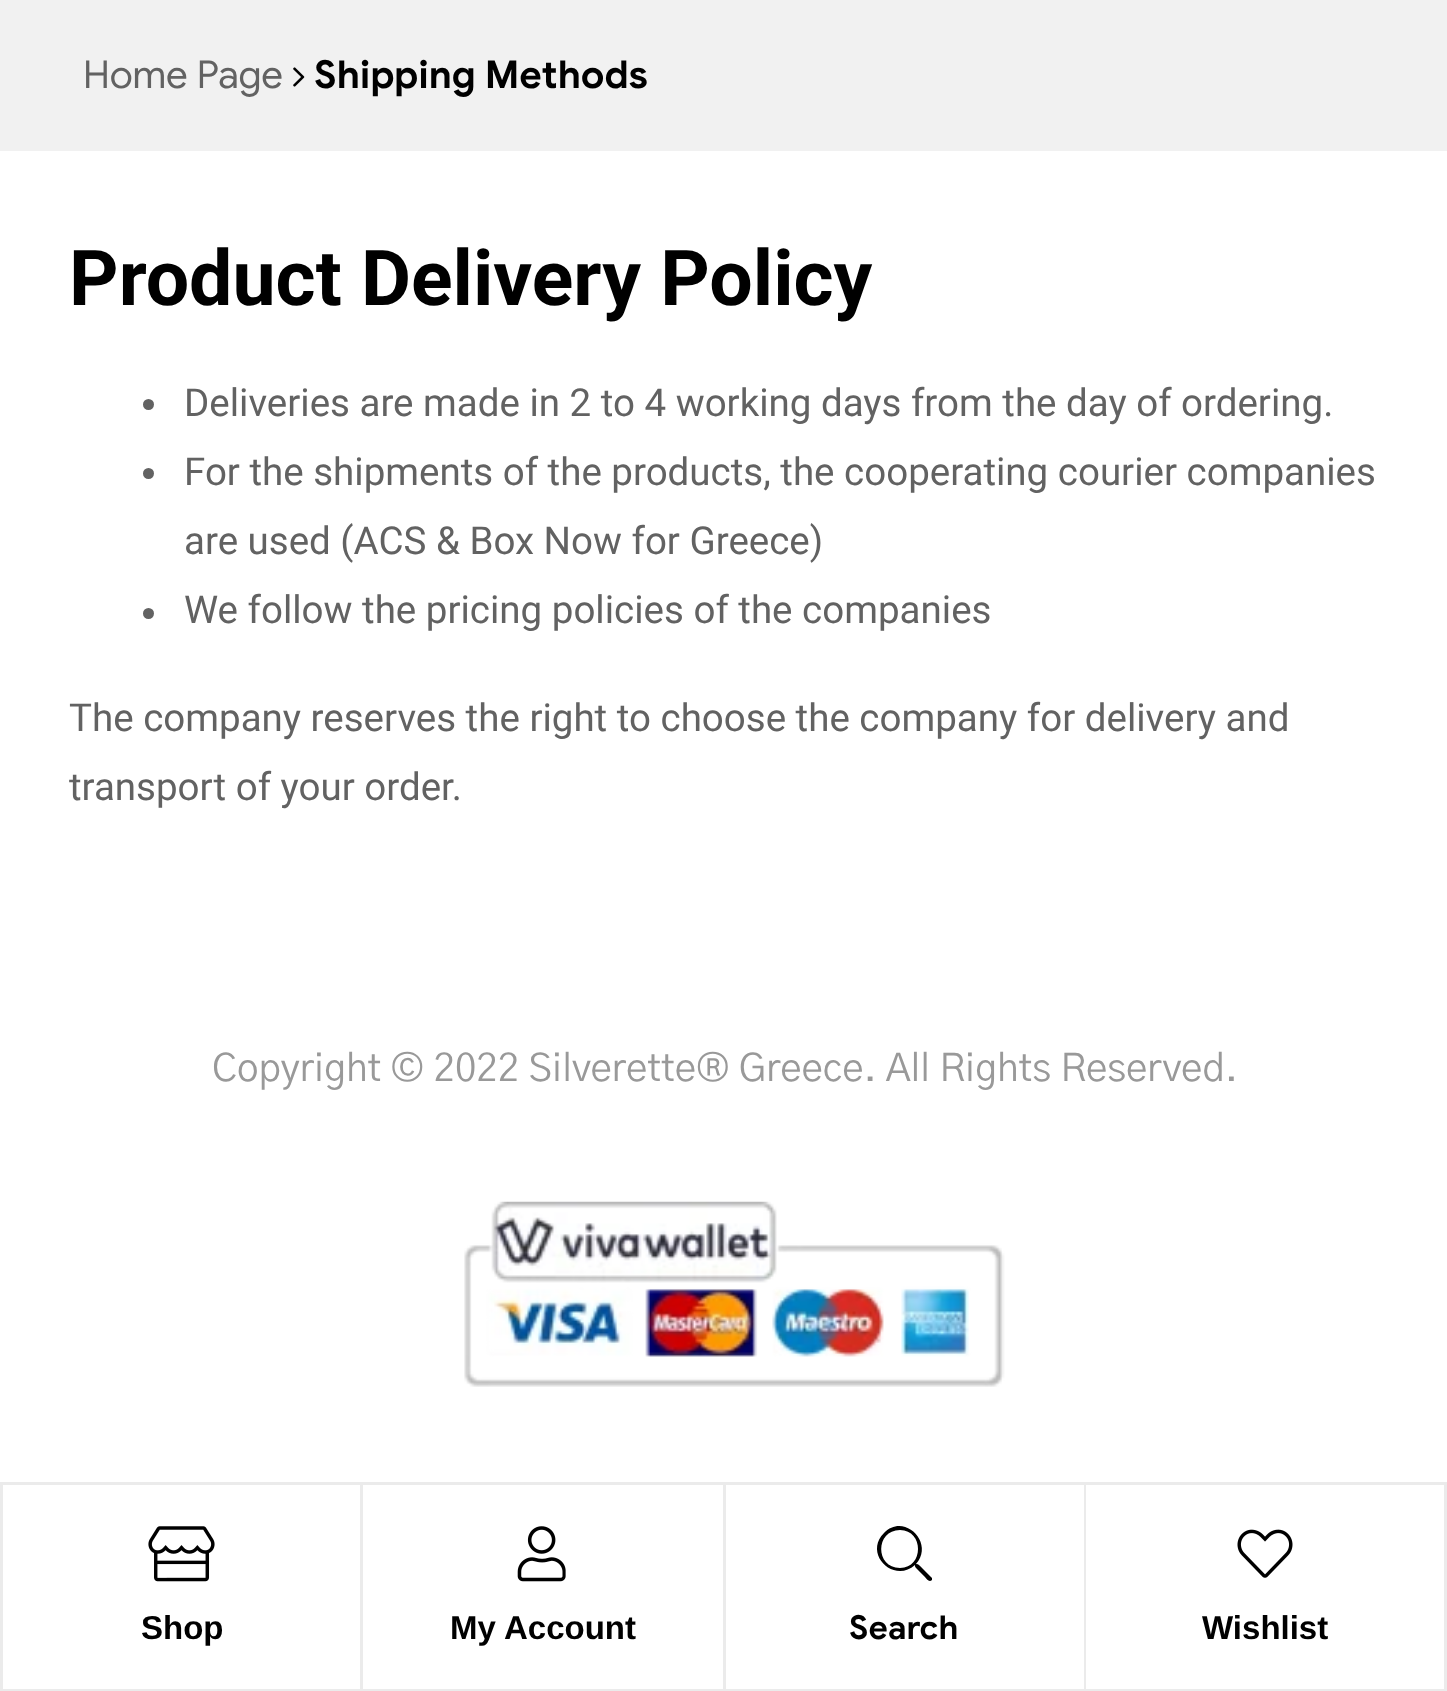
async function draw(canvas) {
	canvas.width = 1447;
	canvas.height = 1691;
	const c = canvas.getContext('2d');
	c.miterLimit = 4;
	c.fontKerning = 'normal';
	async function loadImage(src) {
		const img = new Image();
		img.src = src;
		await img.decode();
		return img;
	}

	c.fillStyle = '#fff';
	c.fillRect(0, 0, 1447, 1691);
	c.fillStyle = '#f1f1f1';
	c.fillRect(0, 0, 1447, 151);
	c.font = '38.5px Google Sans';
	c.fillStyle = '#626262';
	c.fillText('Home Page', 83, 88);
	c.drawImage(await loadImage('img1.png'), 293, 67, 12, 20);
	c.font = 'bold 38.5px Google Sans';
	c.fillStyle = '#000';
	c.fillText('Shipping Methods', 314, 88);
	c.font = 'bold 77px Roboto';
	c.fillText('Product Delivery Policy', 69, 305);
	c.fillStyle = '#626262';
	c.beginPath();
	c.arc(148.5, 404.5, 5.5, 0, 2 * Math.PI);
	c.fill();
	c.font = '38.5px Roboto';
	c.fillText('Deliveries are made in 2 to 4 working days from the day of ordering.', 184, 416);
	c.beginPath();
	c.arc(148.5, 473.5, 5.5, 0, 2 * Math.PI);
	c.fill();
	c.fillText('For the shipments of the products, the cooperating courier companies', 184, 485);
	c.fillText('are used (ACS & Box Now for Greece)', 184, 554);
	c.beginPath();
	c.arc(148.5, 613.5, 5.5, 0, 2 * Math.PI);
	c.fill();
	for (const [text, x, y] of [
		['We follow the pricing policies of the companies', 184, 623],
		['The company reserves the right to choose the company for delivery and', 69, 731],
		['transport of your order.', 69, 800],
	]) {
		c.fillText(text, x, y);
	}
	c.font = '38.5px "Gothic A1"';
	c.fillStyle = '#999';
	c.fillText('Copyright © 2022 Silverette® Greece. All Rights Reserved.', 212, 1081);
	c.drawImage(await loadImage('img2.png'), 464, 1201, 541, 186);
	c.strokeStyle = '#ebebeb';
	c.lineWidth = 3;
	c.strokeRect(1.5, 1483.5, 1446, 206);
	c.fillStyle = '#fff';
	c.fillRect(3, 1688, 357, 1);
	c.fillStyle = '#ebebeb';
	c.fillRect(360, 1485, 3, 204);
	c.drawImage(await loadImage('img3.png'), 148, 1526, 67, 56);
	c.font = 'bold 33px Liberation Sans';
	c.fillStyle = '#000';
	c.fillText('Shop', 141, 1639);
	c.fillStyle = '#fff';
	c.fillRect(363, 1688, 360, 1);
	c.fillStyle = '#ebebeb';
	c.fillRect(723, 1485, 3, 204);
	c.drawImage(await loadImage('img4.png'), 517, 1526, 49, 56);
	c.fillStyle = '#000';
	c.fillText('My', 450, 1639);
	c.fillText('Account', 504, 1639);
	c.fillStyle = '#fff';
	c.fillRect(726, 1688, 358, 1);
	c.fillStyle = '#ebebeb';
	c.fillRect(1084, 1485, 2, 204);
	c.fillStyle = '#000';
	c.beginPath();
	c.moveTo(932, 1578);
	c.lineTo(923, 1569);
	c.bezierCurveTo(920, 1566, 919, 1564, 916, 1564);
	c.bezierCurveTo(935, 1543, 904, 1512, 884, 1533);
	c.bezierCurveTo(863, 1554, 894, 1584, 915, 1565);
	c.bezierCurveTo(915, 1567, 915, 1567, 917, 1569);
	c.lineTo(924, 1576);
	c.bezierCurveTo(927, 1579, 929, 1583, 932, 1580);
	c.closePath();
	c.moveTo(900, 1568);
	c.bezierCurveTo(875, 1568, 875, 1530, 900, 1530);
	c.bezierCurveTo(924, 1530, 924, 1568, 900, 1568);
	c.closePath();
	c.fill();
	c.font = 'bold 33px Google Sans';
	c.fillText('Search', 849, 1639);
	c.fillStyle = '#fff';
	c.fillRect(1086, 1688, 358, 1);
	c.fillStyle = '#ebebeb';
	c.fillRect(1444, 1485, 2, 204);
	c.drawImage(await loadImage('img5.png'), 1237, 1529, 56, 49);
	c.font = 'bold 33px Liberation Sans';
	c.fillStyle = '#000';
	c.fillText('Wishlist', 1202, 1639);
}

draw(document.querySelector('canvas'));
